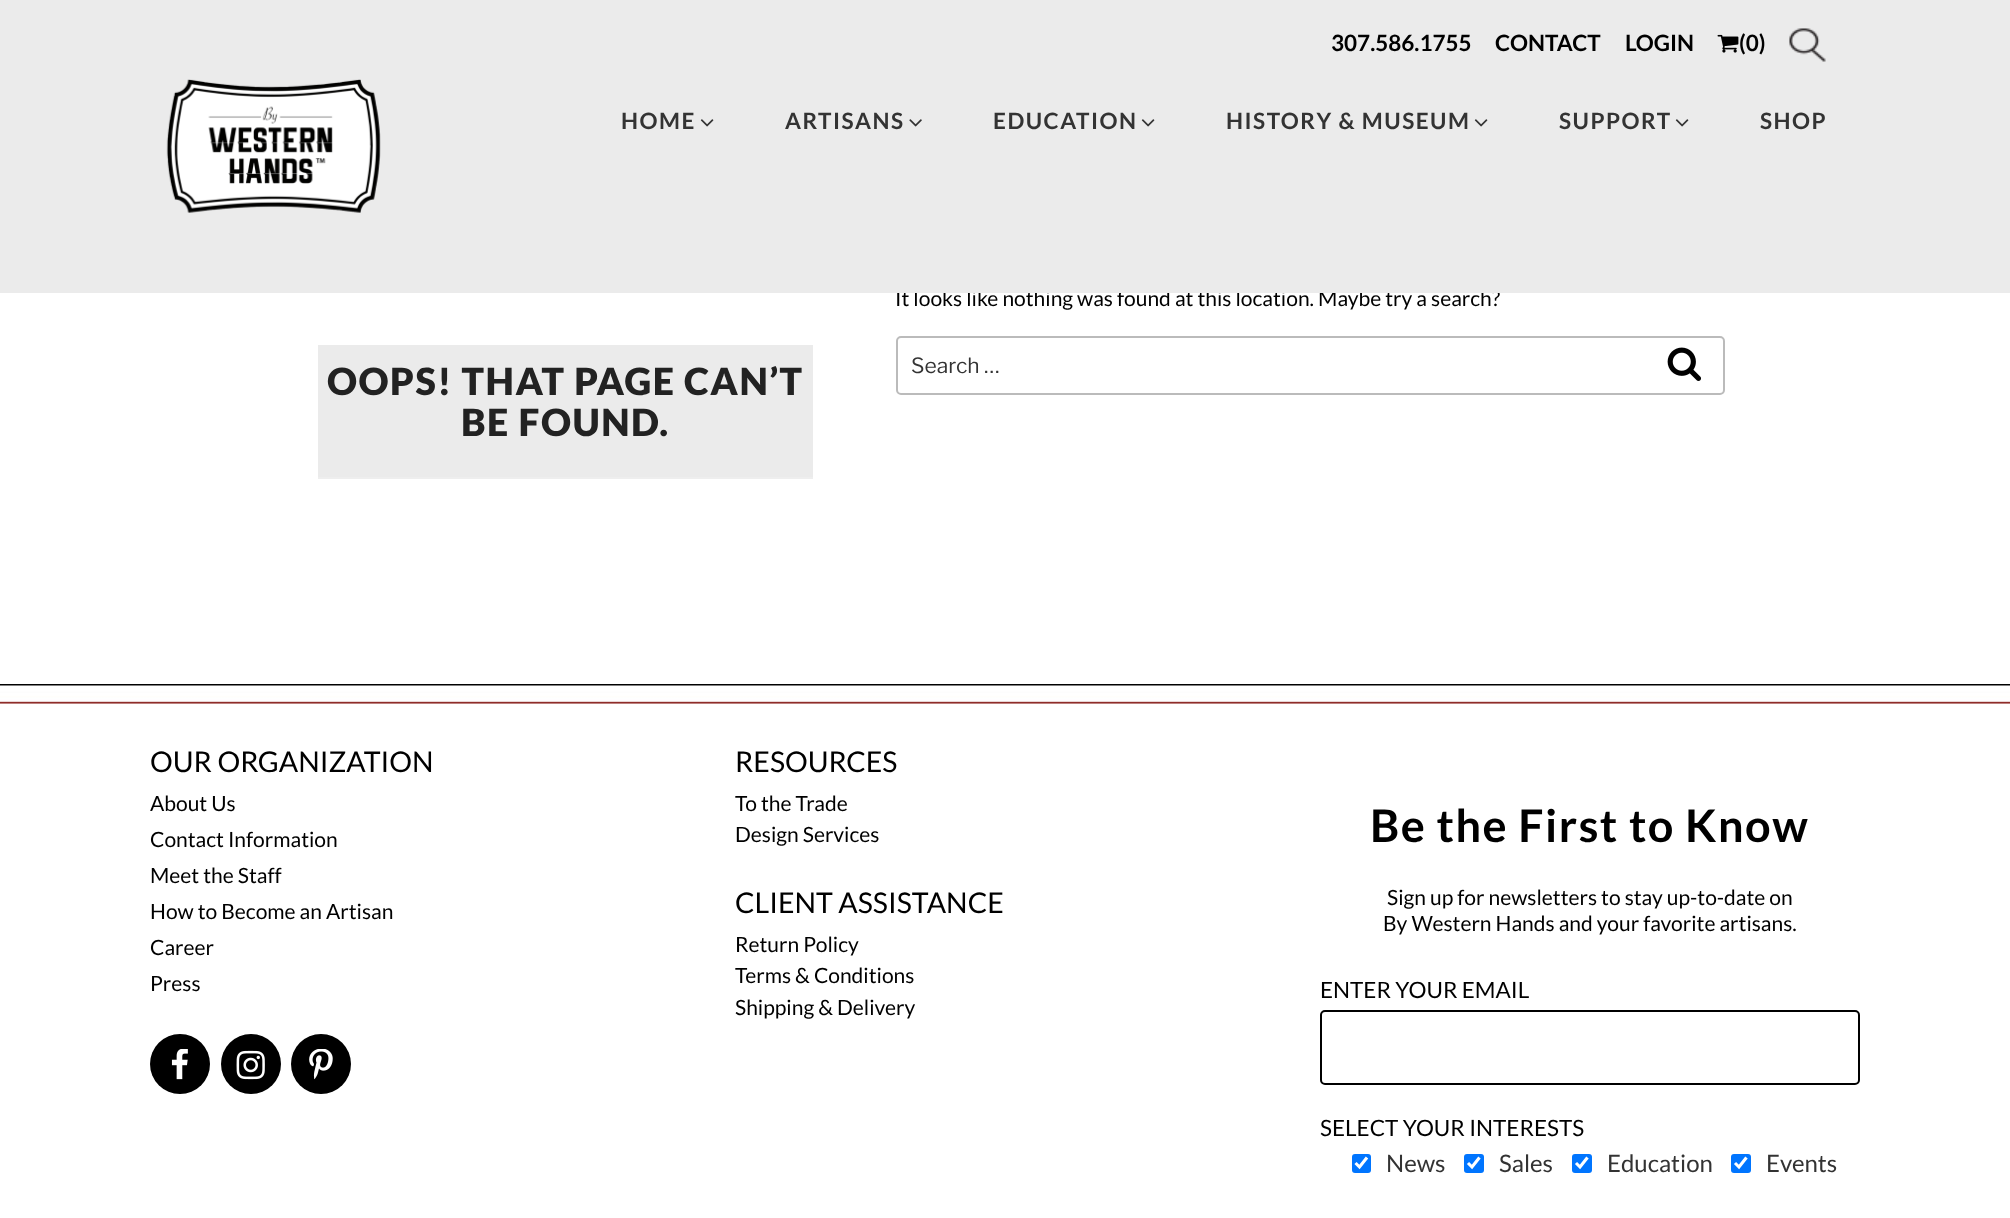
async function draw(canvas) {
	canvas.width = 2010;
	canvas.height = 1218;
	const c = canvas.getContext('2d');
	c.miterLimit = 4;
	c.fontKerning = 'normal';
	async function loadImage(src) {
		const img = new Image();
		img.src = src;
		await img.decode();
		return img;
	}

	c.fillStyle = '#fff';
	c.fillRect(0, 0, 2010, 1218);
	c.font = '21px Lato';
	c.fillStyle = '#000';
	c.fillText('It looks like nothing was found at this location. Maybe try a search?', 895, 306);
	c.fillStyle = '#ebebeb';
	c.fillRect(0, 0, 2010, 293);
	c.drawImage(await loadImage('img1.png'), 166, 79, 215, 134);
	c.font = 'bold 22.5px Lato';
	c.fillStyle = '#000';
	for (const [text, x, y] of [
		['307.586.1755', 1331, 51],
		['CONTACT', 1495, 51],
		['LOGIN', 1625, 51],
	]) {
		c.fillText(text, x, y);
	}
	c.drawImage(await loadImage('img2.png'), 1717, 34, 22, 19);
	c.fillText('(0)', 1739, 51);
	c.drawImage(await loadImage('img3.png'), 1789, 28, 37, 34);
	c.letterSpacing = '1.5px';
	c.fillStyle = '#333';
	c.fillText('HOME', 621, 129);
	c.drawImage(await loadImage('img4.png'), 700, 119, 14, 8);
	c.fillText('ARTISANS', 785, 129);
	c.drawImage(await loadImage('img5.png'), 909, 119, 13, 8);
	c.fillText('EDUCATION', 993, 129);
	c.drawImage(await loadImage('img4.png'), 1141, 119, 14, 8);
	c.fillText('HISTORY & MUSEUM', 1226, 129);
	c.drawImage(await loadImage('img4.png'), 1474, 119, 14, 8);
	c.fillText('SUPPORT', 1559, 129);
	c.drawImage(await loadImage('img4.png'), 1675, 119, 14, 8);
	c.fillText('SHOP', 1760, 129);
	c.beginPath();
	c.roundRect(897, 337, 827, 57, 4);
	c.strokeStyle = '#bbb';
	c.lineWidth = 2;
	c.stroke();
	c.letterSpacing = '0px';
	c.font = '21px Libre Franklin';
	c.fillText('Search …', 911, 373);
	c.drawImage(await loadImage('img6.png'), 1667, 347, 34, 34);
	c.fillStyle = '#ebebeb';
	c.fillRect(318, 345, 495, 132);
	c.fillStyle = '#eee';
	c.fillRect(318, 477, 495, 2);
	c.letterSpacing = '1.5px';
	c.font = '900 37.5px Lato';
	c.fillStyle = '#222';
	c.fillText('OOPS! THAT PAGE CAN’T', 327, 395);
	c.fillText('BE FOUND.', 461, 436);
	c.drawImage(await loadImage('img7.png'), 0, 684, 2010, 20);
	c.letterSpacing = '0px';
	c.font = '28.5px Lato';
	c.fillStyle = '#000';
	c.fillText('OUR ORGANIZATION', 150, 772);
	c.font = '21px Lato';
	for (const [text, x, y] of [
		['About Us', 150, 811],
		['Contact Information', 150, 847],
		['Meet the Staff', 150, 883],
		['How to Become an Artisan', 150, 919],
		['Career', 150, 955],
		['Press', 150, 991],
	]) {
		c.fillText(text, x, y);
	}
	c.beginPath();
	c.arc(180, 1064, 30, 0, 2 * Math.PI);
	c.fill();
	c.drawImage(await loadImage('img8.png'), 171, 1049, 17, 31);
	c.beginPath();
	c.arc(251, 1064, 30, 0, 2 * Math.PI);
	c.fill();
	c.drawImage(await loadImage('img9.png'), 236, 1050, 29, 30);
	c.beginPath();
	c.arc(321, 1064, 30, 0, 2 * Math.PI);
	c.fill();
	c.drawImage(await loadImage('img10.png'), 309, 1049, 24, 31);
	c.font = '28.5px Lato';
	c.fillText('RESOURCES', 735, 772);
	c.font = '21px Lato';
	c.fillText('To the Trade', 735, 811);
	c.fillText('Design Services', 735, 842);
	c.font = '28.5px Lato';
	c.fillText('CLIENT ASSISTANCE', 735, 913);
	c.font = '21px Lato';
	for (const [text, x, y] of [
		['Return Policy', 735, 952],
		['Terms & Conditions', 735, 983],
		['Shipping & Delivery', 735, 1015],
	]) {
		c.fillText(text, x, y);
	}
	c.letterSpacing = '1.5px';
	c.font = 'bold 45px Lato';
	c.fillText('Be the First to Know', 1370, 842);
	c.letterSpacing = '0px';
	c.font = '21px Lato';
	c.fillText('Sign up for newsletters to stay up-to-date on', 1387, 905);
	c.fillText('By Western Hands and your favorite artisans.', 1383, 931);
	c.font = '22.5px Lato';
	c.fillText('ENTER YOUR EMAIL', 1320, 998);
	c.beginPath();
	c.roundRect(1321, 1011, 538, 73, 4);
	c.strokeStyle = '#000';
	c.stroke();
	c.fillText('SELECT YOUR INTERESTS', 1320, 1136);
	c.fillStyle = '#0075ff';
	c.beginPath();
	c.roundRect(1352, 1154, 19, 19, 3);
	c.fill();
	c.beginPath();
	c.moveTo(1355.5, 1163);
	c.lineTo(1359.5, 1167);
	c.lineTo(1367, 1157.5);
	c.strokeStyle = '#fff';
	c.lineWidth = 3.1;
	c.stroke();
	c.font = '24px Lato';
	c.fillStyle = '#333';
	c.fillText('News', 1386, 1172);
	c.fillStyle = '#0075ff';
	c.beginPath();
	c.roundRect(1464, 1154, 20, 19, 3);
	c.fill();
	c.beginPath();
	c.moveTo(1468, 1163);
	c.lineTo(1472, 1167);
	c.lineTo(1479.5, 1157.5);
	c.stroke();
	c.fillStyle = '#333';
	c.fillText('Sales', 1499, 1172);
	c.fillStyle = '#0075ff';
	c.beginPath();
	c.roundRect(1572, 1154, 20, 19, 3);
	c.fill();
	c.beginPath();
	c.moveTo(1576, 1163);
	c.lineTo(1580, 1167);
	c.lineTo(1587.5, 1157.5);
	c.stroke();
	c.fillStyle = '#333';
	c.fillText('Education', 1607, 1172);
	c.fillStyle = '#0075ff';
	c.beginPath();
	c.roundRect(1731, 1154, 20, 19, 3);
	c.fill();
	c.beginPath();
	c.moveTo(1735, 1163);
	c.lineTo(1739, 1167);
	c.lineTo(1746.5, 1157.5);
	c.stroke();
	c.fillStyle = '#333';
	c.fillText('Events', 1766, 1172);
}

draw(document.querySelector('canvas'));
